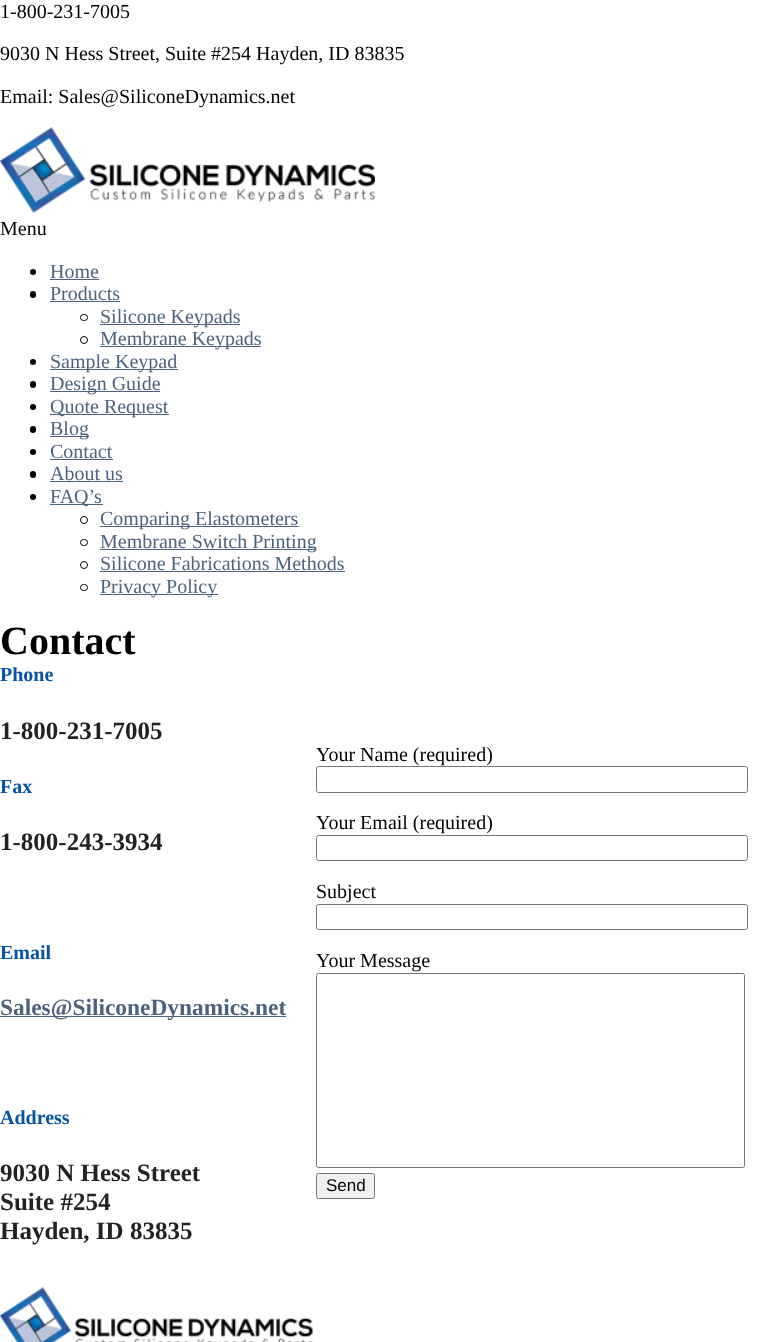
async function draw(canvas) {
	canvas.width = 758;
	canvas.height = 1342;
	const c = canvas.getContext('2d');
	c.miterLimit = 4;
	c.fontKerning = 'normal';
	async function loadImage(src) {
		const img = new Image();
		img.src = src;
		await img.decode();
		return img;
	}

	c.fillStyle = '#fff';
	c.fillRect(0, 0, 758, 1342);
	c.font = '20px Liberation Serif';
	c.fillStyle = '#000';
	for (const [text, x, y] of [
		['1-800-231-7005', 0, 18],
		['9030 N Hess Street, Suite #254 Hayden, ID 83835', 0, 60],
		['Email: Sales@SiliconeDynamics.net', 0, 103],
	]) {
		c.fillText(text, x, y);
	}
	c.drawImage(await loadImage('img1.png'), 0, 127, 375, 86);
	c.fillText('Menu', 0, 235);
	c.beginPath();
	c.arc(33, 272, 3, 0, 2 * Math.PI);
	c.fill();
	c.fillStyle = '#4d637d';
	c.fillText('Home', 50, 278);
	c.fillRect(50, 279, 49, 1);
	c.fillStyle = '#000';
	c.beginPath();
	c.roundRect(30, 291, 6, 7, 3);
	c.fill();
	c.fillStyle = '#4d637d';
	c.fillText('Products', 50, 300);
	c.fillRect(50, 301, 70, 1);
	c.beginPath();
	c.roundRect(80.5, 314.5, 7, 6, 3);
	c.strokeStyle = '#000';
	c.stroke();
	c.fillRect(100, 324, 140, 1);
	c.fillText('Silicone Keypads', 100, 323);
	c.beginPath();
	c.arc(84, 340, 3.5, 0, 2 * Math.PI);
	c.stroke();
	c.fillRect(100, 346, 161, 1);
	c.fillText('Membrane Keypads', 100, 345);
	c.fillStyle = '#000';
	c.beginPath();
	c.arc(33, 362, 3, 0, 2 * Math.PI);
	c.fill();
	c.fillStyle = '#4d637d';
	c.fillRect(50, 369, 128, 1);
	c.fillText('Sample Keypad', 50, 368);
	c.fillStyle = '#000';
	c.beginPath();
	c.roundRect(30, 381, 6, 7, 3);
	c.fill();
	c.fillStyle = '#4d637d';
	c.fillRect(50, 391, 110, 1);
	c.fillText('Design Guide', 50, 390);
	c.fillStyle = '#000';
	c.beginPath();
	c.arc(33, 407, 3, 0, 2 * Math.PI);
	c.fill();
	c.fillStyle = '#4d637d';
	c.fillRect(50, 414, 119, 1);
	c.fillText('Quote Request', 50, 413);
	c.fillStyle = '#000';
	c.beginPath();
	c.roundRect(30, 426, 6, 7, 3);
	c.fill();
	c.fillStyle = '#4d637d';
	c.fillRect(50, 436, 39, 1);
	c.fillText('Blog', 50, 435);
	c.fillStyle = '#000';
	c.beginPath();
	c.arc(33, 452, 3, 0, 2 * Math.PI);
	c.fill();
	c.fillStyle = '#4d637d';
	c.fillText('Contact', 50, 458);
	c.fillRect(50, 459, 63, 1);
	c.fillStyle = '#000';
	c.beginPath();
	c.roundRect(30, 471, 6, 7, 3);
	c.fill();
	c.fillStyle = '#4d637d';
	c.fillText('About us', 50, 480);
	c.fillRect(50, 481, 73, 1);
	c.fillStyle = '#000';
	c.beginPath();
	c.arc(33, 497, 3, 0, 2 * Math.PI);
	c.fill();
	c.fillStyle = '#4d637d';
	c.fillRect(50, 504, 53, 1);
	c.fillText('FAQ’s', 50, 503);
	c.beginPath();
	c.arc(84, 520, 3.5, 0, 2 * Math.PI);
	c.stroke();
	c.fillRect(100, 526, 199, 1);
	c.fillText('Comparing Elastometers', 100, 525);
	c.beginPath();
	c.roundRect(80.5, 539.5, 7, 6, 3);
	c.stroke();
	c.fillRect(100, 549, 216, 1);
	c.fillText('Membrane Switch Printing', 100, 548);
	c.beginPath();
	c.arc(84, 565, 3.5, 0, 2 * Math.PI);
	c.stroke();
	c.fillText('Silicone Fabrications Methods', 100, 570);
	c.fillRect(100, 571, 245, 1);
	c.beginPath();
	c.roundRect(80.5, 584.5, 7, 6, 3);
	c.stroke();
	c.fillRect(100, 594, 118, 1);
	c.fillText('Privacy Policy', 100, 593);
	c.font = 'bold 40px Liberation Serif';
	c.fillStyle = '#000';
	c.fillText('Contact', 0, 654);
	c.font = 'bold 20px Liberation Serif';
	c.fillStyle = '#0853a2';
	c.fillText('Phone', 0, 681);
	c.font = 'bold 25px Liberation Serif';
	c.fillStyle = '#222';
	c.fillText('1-800-231-7005', 0, 739);
	c.font = 'bold 20px Liberation Serif';
	c.fillStyle = '#0853a2';
	c.fillText('Fax', 0, 793);
	c.font = 'bold 25px Liberation Serif';
	c.fillStyle = '#222';
	c.fillText('1-800-243-3934', 0, 850);
	c.font = 'bold 20px Liberation Serif';
	c.fillStyle = '#0853a2';
	c.fillText('Email', 0, 959);
	c.fillStyle = '#4d637d';
	c.fillRect(0, 1016, 286, 1);
	c.font = 'bold 23.4px Liberation Serif';
	c.fillText('Sales@SiliconeDynamics.net', 0, 1015);
	c.font = 'bold 20px Liberation Serif';
	c.fillStyle = '#0853a2';
	c.fillText('Address', 0, 1124);
	c.font = 'bold 25px Liberation Serif';
	c.fillStyle = '#222';
	for (const [text, x, y] of [
		['9030 N Hess Street', 0, 1181],
		['Suite #254', 0, 1210],
		['Hayden, ID 83835', 0, 1239],
	]) {
		c.fillText(text, x, y);
	}
	c.font = '20px Liberation Serif';
	c.fillStyle = '#000';
	c.fillText('Your Name (required)', 316, 761);
	c.beginPath();
	c.roundRect(316.5, 766.5, 431, 26, 2);
	c.strokeStyle = '#767676';
	c.stroke();
	c.fillText('Your Email (required)', 316, 829);
	c.beginPath();
	c.roundRect(316.5, 835.5, 431, 25, 2);
	c.stroke();
	c.fillText('Subject', 316, 898);
	c.beginPath();
	c.roundRect(316.5, 904.5, 431, 25, 2);
	c.stroke();
	c.fillText('Your Message', 316, 967);
	c.beginPath();
	c.roundRect(316.5, 973.5, 428, 194, 2);
	c.stroke();
	c.fillStyle = '#efefef';
	c.beginPath();
	c.roundRect(316.5, 1173.5, 58, 25, 2);
	c.fill();
	c.stroke();
	c.font = '17px Liberation Sans';
	c.fillStyle = '#000';
	c.fillText('Send', 326, 1191);
	c.drawImage(await loadImage('img2.png'), 0, 1287, 313, 55);
}

draw(document.querySelector('canvas'));
